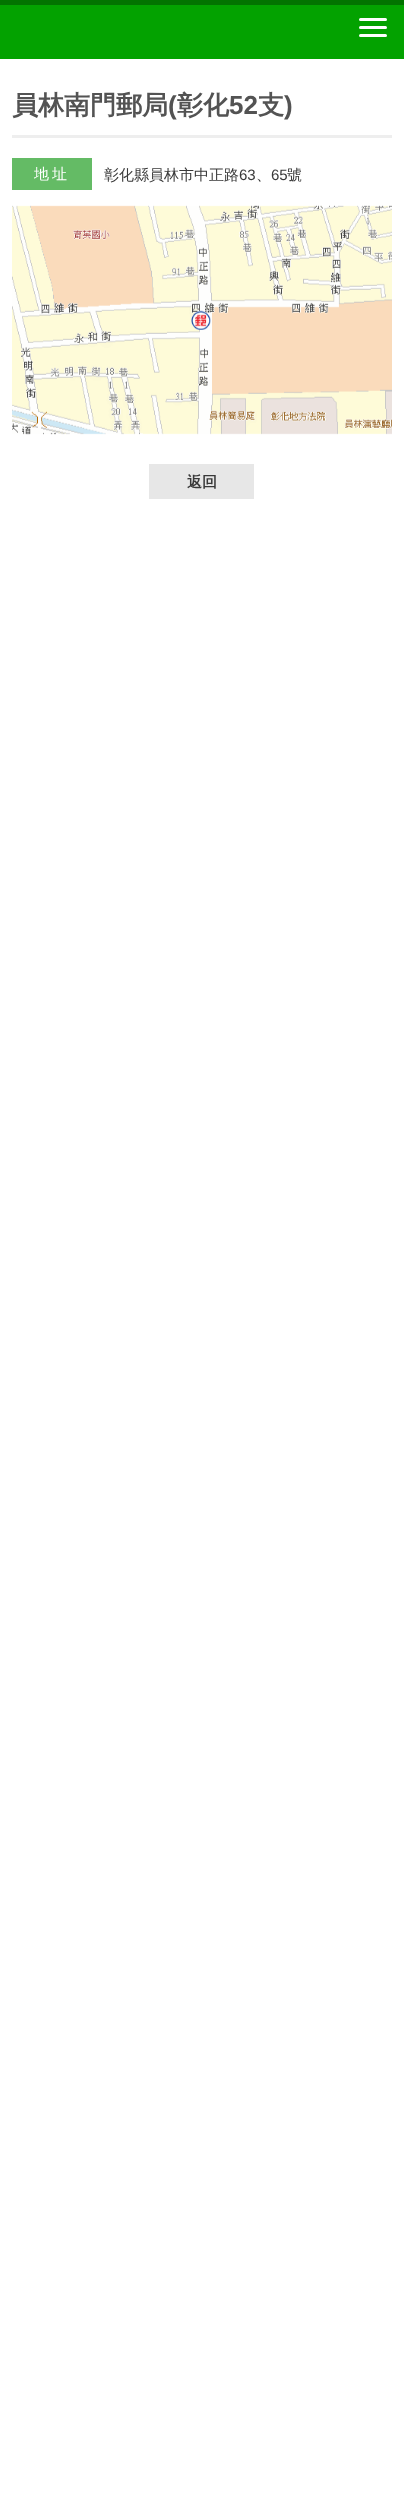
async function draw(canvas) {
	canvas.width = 404;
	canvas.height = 2511;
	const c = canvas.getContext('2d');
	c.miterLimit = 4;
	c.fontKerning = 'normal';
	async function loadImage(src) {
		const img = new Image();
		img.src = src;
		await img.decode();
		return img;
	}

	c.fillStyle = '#fff';
	c.fillRect(0, 0, 404, 2511);
	c.drawImage(await loadImage('img1.png'), 0, 0, 404, 59);
	c.beginPath();
	c.roundRect(359, 18, 28, 3, 1.5);
	c.fill();
	c.beginPath();
	c.roundRect(359, 26, 28, 3, 1.5);
	c.fill();
	c.beginPath();
	c.roundRect(359, 34, 28, 3, 1.5);
	c.fill();
	c.fillStyle = '#eee';
	c.fillRect(12, 135, 380, 3);
	c.font = 'bold 26px WenQuanYi Zen Hei';
	c.fillStyle = '#535353';
	c.fillText('員林南門郵局', 12, 114);
	c.font = 'bold 26px Liberation Sans';
	c.fillText('(', 168, 114);
	c.font = 'bold 26px WenQuanYi Zen Hei';
	c.fillText('彰化', 177, 114);
	c.font = 'bold 26px Liberation Sans';
	c.fillText('52', 229, 114);
	c.font = 'bold 26px WenQuanYi Zen Hei';
	c.fillText('支', 258, 114);
	c.font = 'bold 26px Liberation Sans';
	c.fillText(')', 284, 114);
	c.fillStyle = '#64bb65';
	c.fillRect(12, 158, 80, 32);
	c.letterSpacing = '3px';
	c.font = '500 15px WenQuanYi Zen Hei';
	c.fillStyle = '#fff';
	c.fillText('地址', 34, 179);
	c.letterSpacing = '0px';
	c.fillStyle = '#393939';
	c.fillText('彰化縣員林市中正路', 104, 180);
	c.font = '15px Liberation Sans';
	c.fillText('63', 239, 180);
	c.font = '500 15px WenQuanYi Zen Hei';
	c.fillText('、', 256, 180);
	c.font = '15px Liberation Sans';
	c.fillText('65', 271, 180);
	c.font = '500 15px WenQuanYi Zen Hei';
	c.fillText('號', 287, 180);
	c.drawImage(await loadImage('img2.png'), 12, 205, 380, 230);
	c.fillStyle = '#e7e7e7';
	c.fillRect(149, 464, 105, 35);
	c.font = 'bold 15px WenQuanYi Zen Hei';
	c.fillStyle = '#393939';
	c.fillText('返回', 187, 487);
}

draw(document.querySelector('canvas'));
